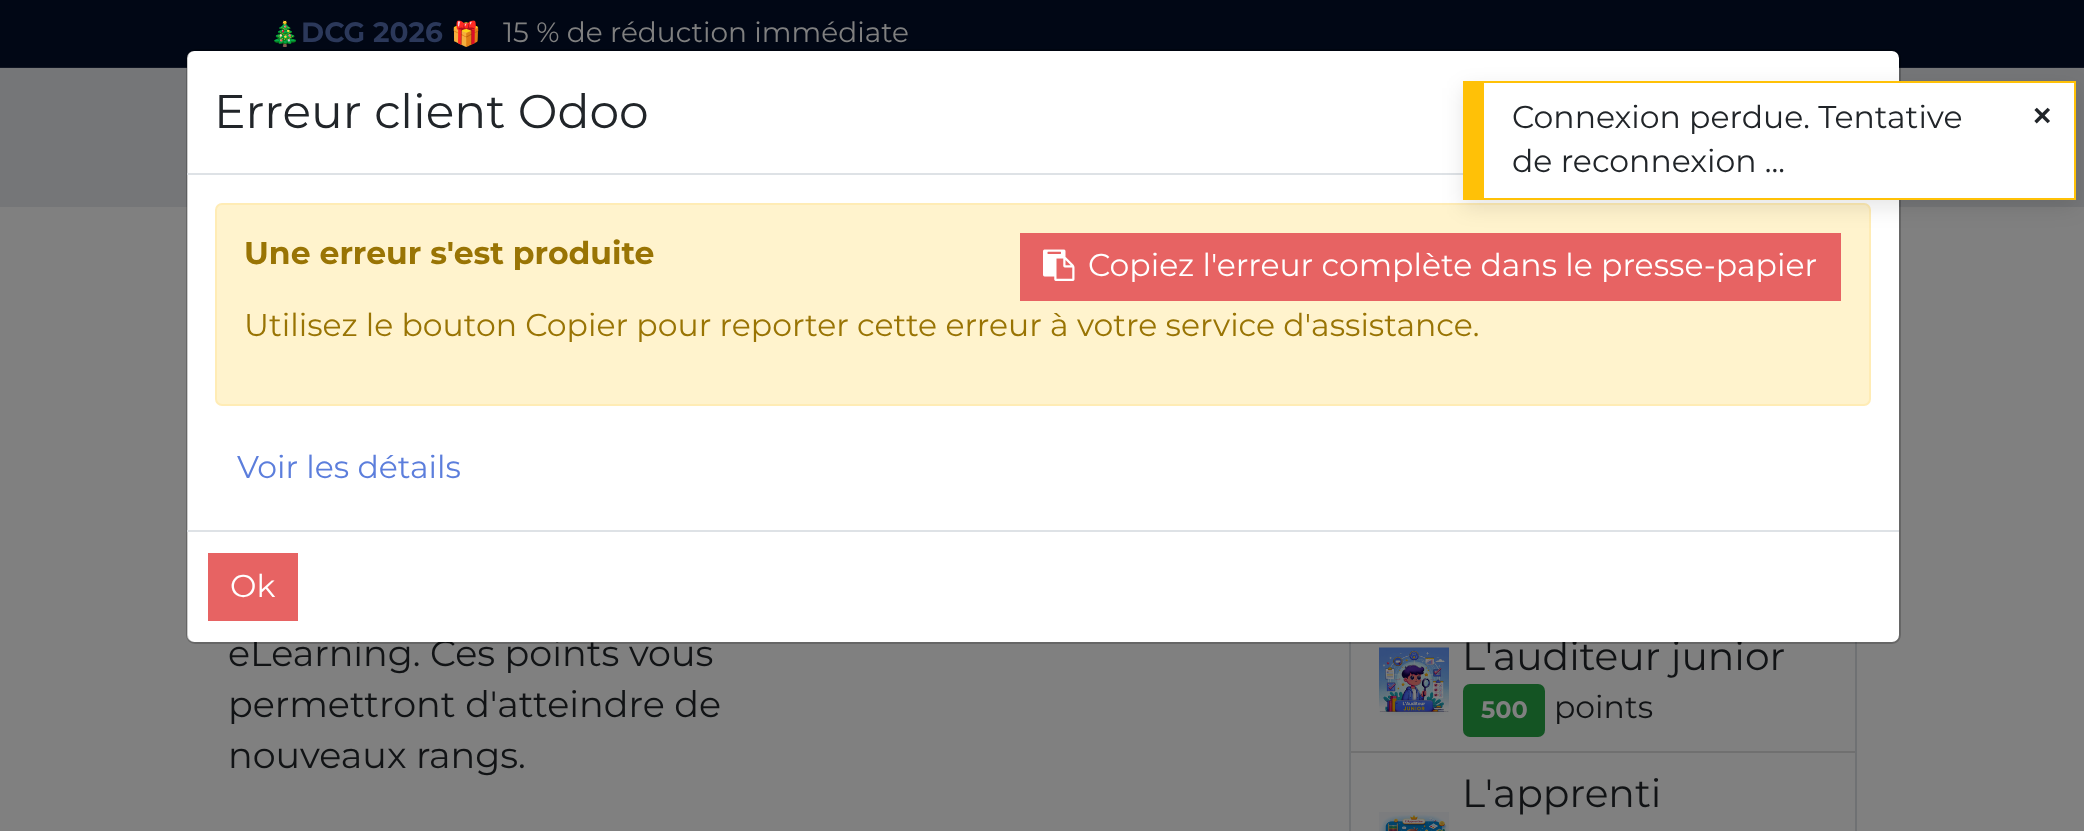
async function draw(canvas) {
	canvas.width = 2084;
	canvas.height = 831;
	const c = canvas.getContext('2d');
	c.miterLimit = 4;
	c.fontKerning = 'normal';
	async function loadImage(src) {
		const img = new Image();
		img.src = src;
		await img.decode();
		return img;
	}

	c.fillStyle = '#808080';
	c.fillRect(0, 0, 2084, 831);
	c.fillStyle = '#010715';
	c.fillRect(0, 0, 2084, 67);
	c.fillStyle = '#101522';
	c.fillRect(0, 67, 2084, 1);
	c.font = '24px Noto Color Emoji';
	c.fillStyle = '#808080';
	c.fillText('🎄', 270, 42);
	c.font = 'bold 28px Montserrat';
	c.fillStyle = '#2b385a';
	c.fillText('DCG 2026', 301, 42);
	c.font = '24px Noto Color Emoji';
	c.fillStyle = '#808080';
	c.fillText('🎁', 451, 42);
	c.font = '28px Montserrat';
	c.fillText('15 % de réduction immédiate', 503, 42);
	c.fillStyle = '#757678';
	c.fillRect(0, 68, 2084, 139);
	c.font = '36.5px Montserrat';
	c.fillStyle = '#111315';
	for (const [text, x, y] of [
		['eLearning. Ces points vous', 228, 666],
		['permettront d\'atteindre de', 228, 717],
		['nouveaux rangs.', 228, 768],
	]) {
		c.fillText(text, x, y);
	}
	c.strokeStyle = '#6f7173';
	c.lineWidth = 2;
	c.strokeRect(1350, 351, 506, 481);
	c.fillStyle = '#707070';
	c.fillRect(1351, 751, 504, 2);
	c.drawImage(await loadImage('img1.png'), 1379, 647, 70, 69);
	c.font = '39.25px Montserrat';
	c.fillStyle = '#111315';
	c.fillText('L\'auditeur junior', 1462, 670);
	c.fillStyle = '#145423';
	c.beginPath();
	c.roundRect(1463, 684, 82, 53, 7);
	c.fill();
	c.font = 'bold 24px Montserrat';
	c.fillStyle = '#808080';
	c.fillText('500', 1481, 718);
	c.font = '31.5px Montserrat';
	c.fillStyle = '#111315';
	c.fillText('points', 1554, 718);
	c.font = '39.25px Montserrat';
	c.fillText('L\'apprenti', 1462, 807);
	c.drawImage(await loadImage('img2.png'), 1379, 812, 70, 19);
	c.fillStyle = '#fff';
	c.beginPath();
	c.roundRect(187, 51, 1712, 591, 7);
	c.fill();
	c.beginPath();
	c.roundRect(187, 50, 1713, 593, 8);
	c.strokeStyle = '#00000033';
	c.stroke();
	c.fillStyle = '#dee2e6';
	c.fillRect(187, 173, 1276, 2);
	c.font = '47.25px Montserrat';
	c.fillStyle = '#212529';
	c.fillText('Erreur client Odoo', 214, 128);
	c.fillStyle = '#fff3cd';
	c.beginPath();
	c.roundRect(216, 204, 1654, 201, 6);
	c.fill();
	c.strokeStyle = '#ffecb5';
	c.stroke();
	c.font = 'bold 31.5px Montserrat';
	c.fillStyle = '#997404';
	c.fillText('Une erreur s\'est produite', 244, 264);
	c.fillStyle = '#e76363';
	c.fillRect(1020, 233, 821, 68);
	c.drawImage(await loadImage('img3.png'), 1043, 249, 32, 32);
	c.font = '31.5px Montserrat';
	c.fillStyle = '#fff';
	c.fillText('Copiez l\'erreur complète dans le presse-papier', 1088, 276);
	c.fillStyle = '#997404';
	c.fillText('Utilisez le bouton Copier pour reporter cette erreur à votre service d\'assistance.', 244, 336);
	c.fillStyle = '#5c7edc';
	c.fillText('Voir les détails', 237, 478);
	c.fillStyle = '#dee2e6';
	c.fillRect(187, 530, 1712, 2);
	c.fillStyle = '#e76363';
	c.fillRect(208, 553, 90, 68);
	c.fillStyle = '#fff';
	c.fillText('Ok', 230, 597);
	c.fillStyle = '#0000001a';
	c.filter = 'blur(10.5px)';
	c.beginPath();
	c.rect(1463, 88, 613, 119);
	c.fill();
	c.filter = 'none';
	for (const [x, y, w, h, color] of [
		[1484, 83, 590, 115, '#fff'],
		[1484, 81, 592, 2, '#ffc107'],
		[2074, 81, 2, 119, '#ffc107'],
		[1484, 198, 592, 2, '#ffc107'],
		[1463, 81, 21, 119, '#ffc107'],
	]) {
		c.fillStyle = color;
		c.fillRect(x, y, w, h);
	}
	c.fillStyle = '#212529';
	c.fillText('Connexion perdue. Tentative', 1512, 128);
	c.fillText('de reconnexion ...', 1512, 172);
	c.font = 'bold 31.5px Liberation Sans';
	c.fillText('×', 2033, 126);
}

draw(document.querySelector('canvas'));
